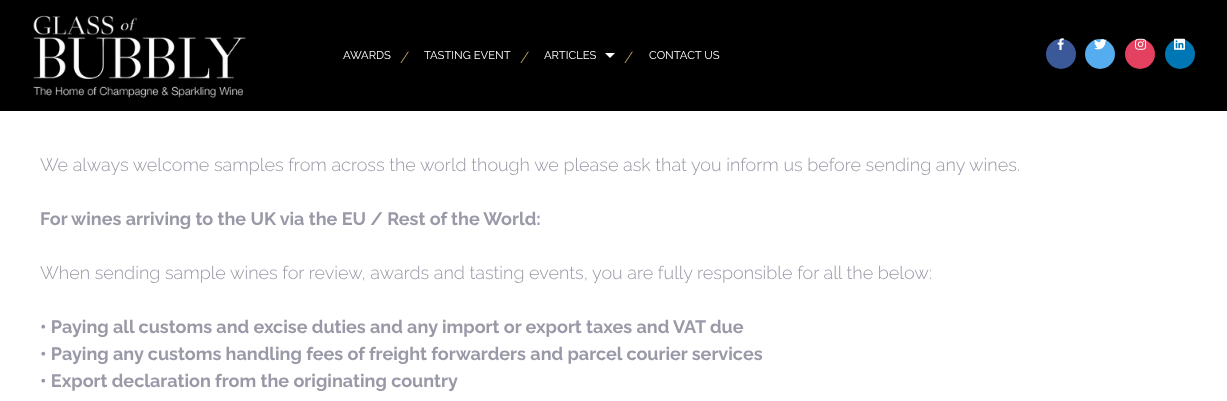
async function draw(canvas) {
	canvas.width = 1227;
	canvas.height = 401;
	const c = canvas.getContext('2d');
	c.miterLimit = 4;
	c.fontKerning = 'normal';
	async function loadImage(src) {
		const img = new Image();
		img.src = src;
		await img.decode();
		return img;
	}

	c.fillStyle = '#fff';
	c.fillRect(0, 0, 1227, 401);
	c.fillStyle = '#000';
	c.fillRect(0, 0, 1227, 111);
	c.drawImage(await loadImage('img1.png'), 33, 15, 213, 83);
	c.font = '100 11.25px "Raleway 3"';
	c.fillStyle = '#fff';
	c.fillText('AWARDS', 343, 59);
	c.font = '100 16px Raleway';
	c.fillStyle = '#cdb062';
	c.fillText('/', 400, 63);
	c.font = '100 11.25px "Raleway 3"';
	c.fillStyle = '#fff';
	c.fillText('TASTING EVENT', 424, 59);
	c.font = '100 16px Raleway';
	c.fillStyle = '#cdb062';
	c.fillText('/', 520, 63);
	c.font = '100 11.25px "Raleway 3"';
	c.fillStyle = '#fff';
	c.fillText('ARTICLES', 544, 59);
	c.beginPath();
	c.moveTo(605, 53);
	c.lineTo(615, 53);
	c.lineTo(610, 58);
	c.closePath();
	c.fill();
	c.font = '100 16px Raleway';
	c.fillStyle = '#cdb062';
	c.fillText('/', 624, 63);
	c.font = '100 11.25px "Raleway 3"';
	c.fillStyle = '#fff';
	c.fillText('CONTACT US', 649, 59);
	c.fillStyle = '#3b5999';
	c.beginPath();
	c.arc(1061, 54, 15, 0, 2 * Math.PI);
	c.fill();
	c.drawImage(await loadImage('img2.png'), 1057, 38, 7, 12);
	c.fillStyle = '#55acee';
	c.beginPath();
	c.arc(1100, 54, 15, 0, 2 * Math.PI);
	c.fill();
	c.drawImage(await loadImage('img3.png'), 1094, 39, 13, 11);
	c.fillStyle = '#e4405f';
	c.beginPath();
	c.arc(1140, 54, 15, 0, 2 * Math.PI);
	c.fill();
	c.drawImage(await loadImage('img4.png'), 1135, 38, 12, 12);
	c.fillStyle = '#0077b5';
	c.beginPath();
	c.arc(1180, 54, 15, 0, 2 * Math.PI);
	c.fill();
	c.drawImage(await loadImage('img5.png'), 1174, 38, 12, 12);
	c.font = '100 18px Raleway';
	c.fillStyle = '#9999a7';
	c.fillText('We always welcome samples from across the world though we please ask that you inform us before sending any wines.', 40, 171);
	c.font = '100 18px "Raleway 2"';
	c.fillText('For wines arriving to the UK via the EU / Rest of the World:', 40, 225);
	c.font = '100 18px Raleway';
	c.fillText('When sending sample wines for review, awards and tasting events, you are fully responsible for all the below:', 40, 279);
	c.font = '100 18px "Raleway 2"';
	for (const [text, x, y] of [
		['• Paying all customs and excise duties and any import or export taxes and VAT due', 40, 333],
		['• Paying any customs handling fees of freight forwarders and parcel courier services', 40, 360],
		['• Export declaration from the originating country', 40, 387],
	]) {
		c.fillText(text, x, y);
	}
}

draw(document.querySelector('canvas'));
